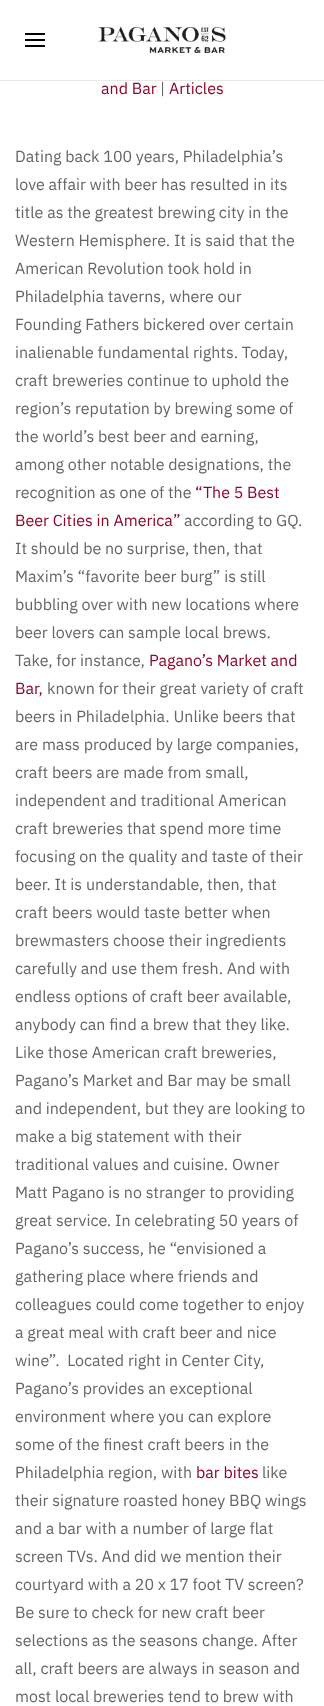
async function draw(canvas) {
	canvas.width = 324;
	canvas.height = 1706;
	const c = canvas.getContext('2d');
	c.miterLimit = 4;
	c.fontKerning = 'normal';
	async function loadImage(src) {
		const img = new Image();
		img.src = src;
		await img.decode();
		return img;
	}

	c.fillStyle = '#fff';
	c.fillRect(0, 0, 324, 1706);
	for (const [x, y, w, h, color] of [
		[0, 80, 324, 1, '#e8e8e8'],
		[25, 33, 20, 2, '#000'],
		[25, 39, 20, 2, '#000'],
		[25, 45, 20, 2, '#000'],
	]) {
		c.fillStyle = color;
		c.fillRect(x, y, w, h);
	}
	c.drawImage(await loadImage('img1.png'), 98, 27, 128, 26);
	c.font = '16px IBM Plex Sans';
	c.fillStyle = '#8e072b';
	c.fillText('and Bar', 101, 94);
	c.fillStyle = '#666';
	c.fillText('|', 160, 94);
	c.fillStyle = '#8e072b';
	c.fillText('Articles', 169, 94);
	c.fillStyle = '#666';
	for (const [text, x, y] of [
		['Dating back 100 years, Philadelphia’s', 15, 162],
		['love affair with beer has resulted in its', 15, 190],
		['title as the greatest brewing city in the', 15, 218],
		['Western Hemisphere. It is said that the', 15, 246],
		['American Revolution took hold in', 15, 274],
		['Philadelphia taverns, where our', 15, 302],
		['Founding Fathers bickered over certain', 15, 330],
		['inalienable fundamental rights. Today,', 15, 358],
		['craft breweries continue to uphold the', 15, 386],
		['region’s reputation by brewing some of', 15, 414],
		['the world’s best beer and earning,', 15, 442],
		['among other notable designations, the', 15, 470],
		['recognition as one of the', 15, 498],
	]) {
		c.fillText(text, x, y);
	}
	c.fillStyle = '#8e072b';
	c.fillText('“The 5 Best', 195, 498);
	c.fillText('Beer Cities in America”', 15, 526);
	c.fillStyle = '#666';
	for (const [text, x, y] of [
		['according to GQ.', 184, 526],
		['It should be no surprise, then, that', 15, 554],
		['Maxim’s “favorite beer burg” is still', 15, 582],
		['bubbling over with new locations where', 15, 610],
		['beer lovers can sample local brews.', 15, 638],
		['Take, for instance,', 15, 666],
	]) {
		c.fillText(text, x, y);
	}
	c.fillStyle = '#8e072b';
	c.fillText('Pagano’s Market and', 149, 666);
	c.fillText('Bar,', 15, 694);
	c.fillStyle = '#666';
	for (const [text, x, y] of [
		['known for their great variety of craft', 47, 694],
		['beers in Philadelphia. Unlike beers that', 15, 722],
		['are mass produced by large companies,', 15, 750],
		['craft beers are made from small,', 15, 778],
		['independent and traditional American', 15, 806],
		['craft breweries that spend more time', 15, 834],
		['focusing on the quality and taste of their', 15, 862],
		['beer. It is understandable, then, that', 15, 890],
		['craft beers would taste better when', 15, 918],
		['brewmasters choose their ingredients', 15, 946],
		['carefully and use them fresh. And with', 15, 974],
		['endless options of craft beer available,', 15, 1002],
		['anybody can find a brew that they like.', 15, 1030],
		['Like those American craft breweries,', 15, 1058],
		['Pagano’s Market and Bar may be small', 15, 1086],
		['and independent, but they are looking to', 15, 1114],
		['make a big statement with their', 15, 1142],
		['traditional values and cuisine. Owner', 15, 1170],
		['Matt Pagano is no stranger to providing', 15, 1198],
		['great service. In celebrating 50 years of', 15, 1226],
		['Pagano’s success, he “envisioned a', 15, 1254],
		['gathering place where friends and', 15, 1282],
		['colleagues could come together to enjoy', 15, 1310],
		['a great meal with craft beer and nice', 15, 1338],
		['wine”.  Located right in Center City,', 15, 1366],
		['Pagano’s provides an exceptional', 15, 1394],
		['environment where you can explore', 15, 1422],
		['some of the finest craft beers in the', 15, 1450],
		['Philadelphia region, with', 15, 1478],
	]) {
		c.fillText(text, x, y);
	}
	c.fillStyle = '#8e072b';
	c.fillText('bar bites', 196, 1478);
	c.fillStyle = '#666';
	for (const [text, x, y] of [
		['like', 262, 1478],
		['their signature roasted honey BBQ wings', 15, 1506],
		['and a bar with a number of large flat', 15, 1534],
		['screen TVs. And did we mention their', 15, 1562],
		['courtyard with a 20 x 17 foot TV screen?', 15, 1590],
		['Be sure to check for new craft beer', 15, 1618],
		['selections as the seasons change. After', 15, 1646],
		['all, craft beers are always in season and', 15, 1674],
		['most local breweries tend to brew with', 15, 1702],
	]) {
		c.fillText(text, x, y);
	}
}

draw(document.querySelector('canvas'));
